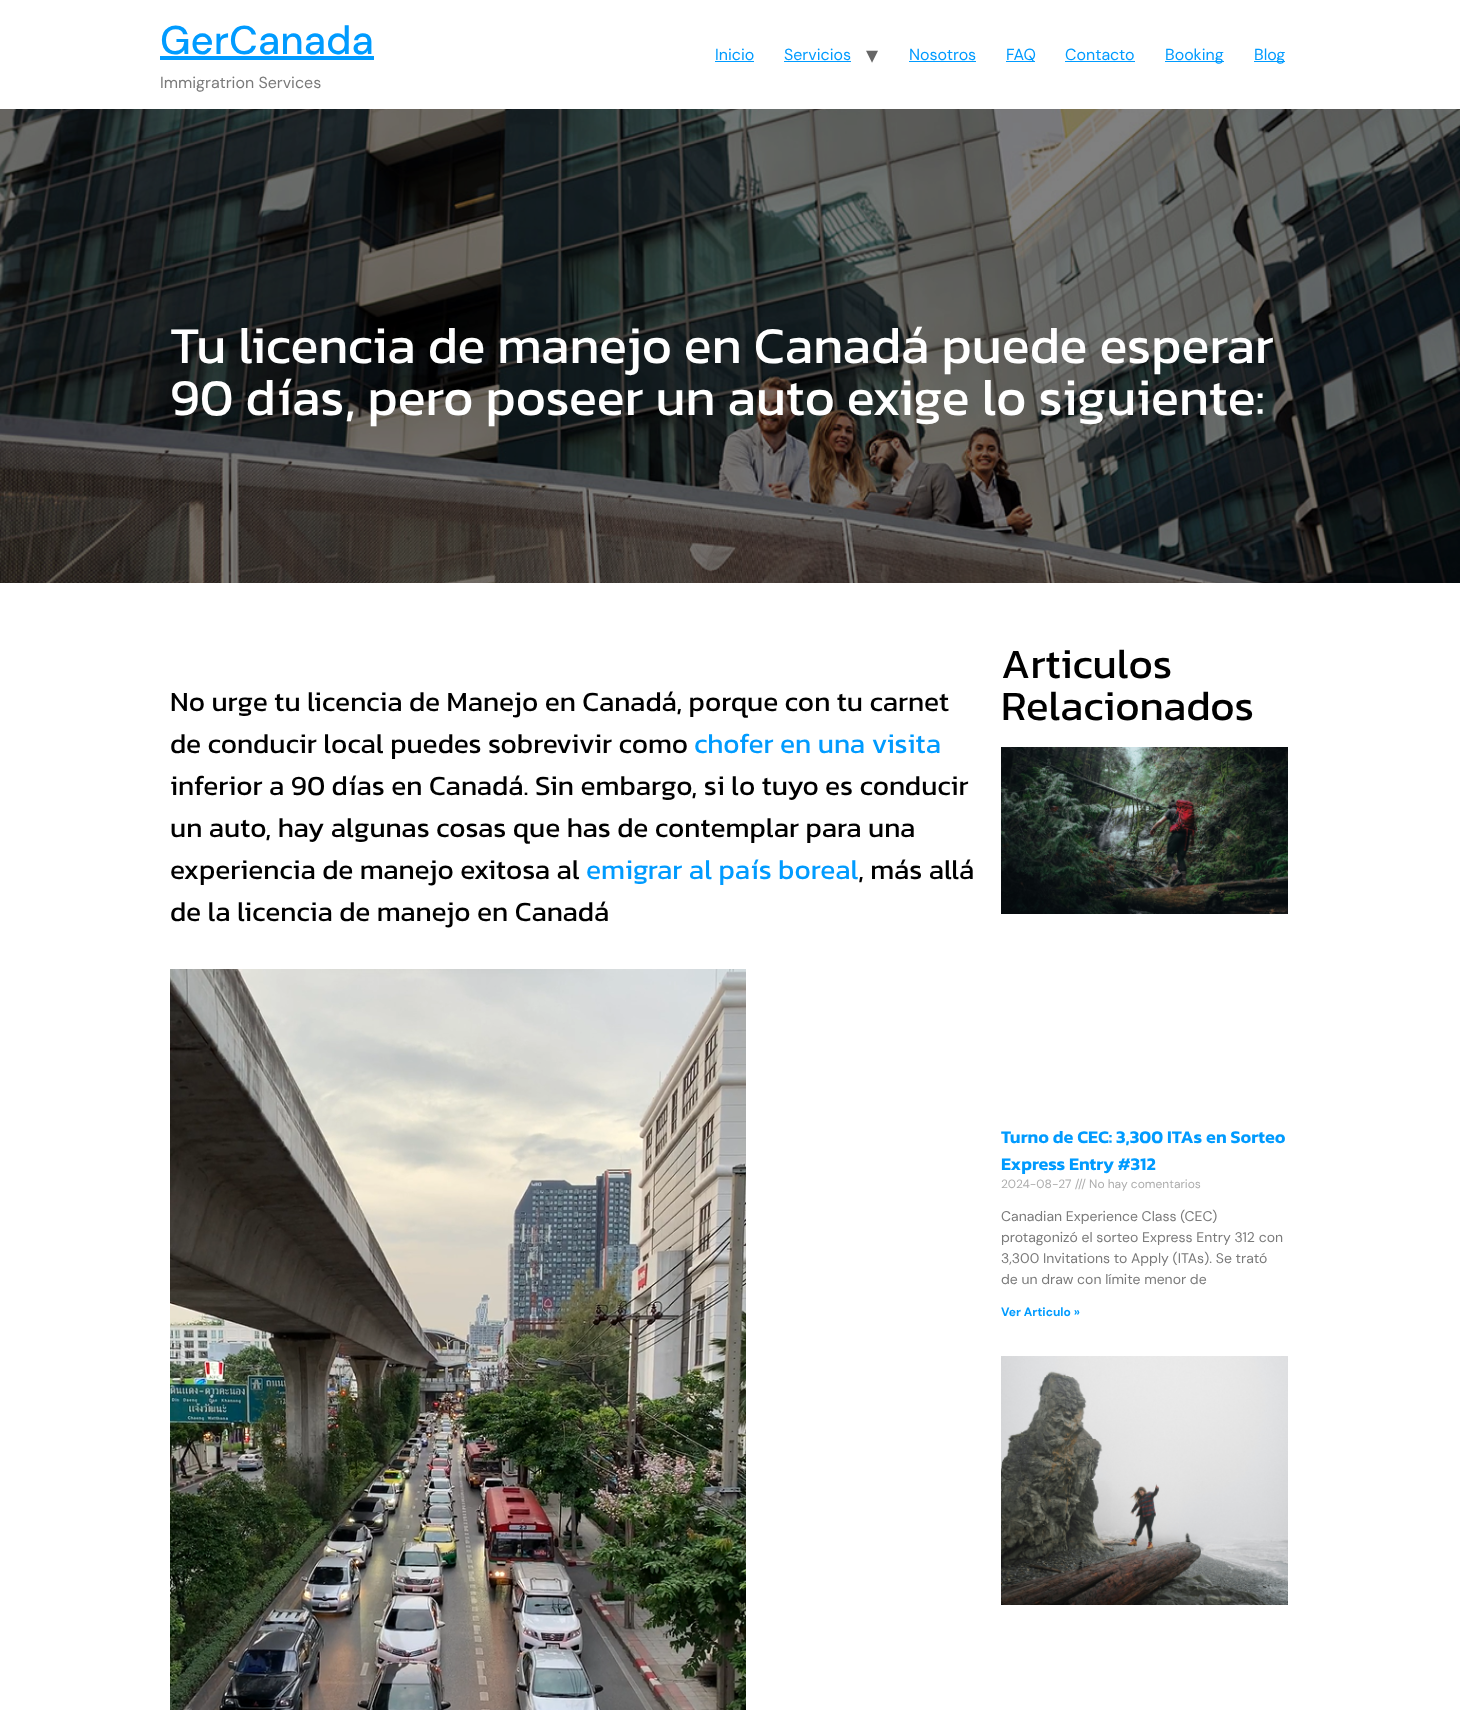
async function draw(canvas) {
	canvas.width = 1460;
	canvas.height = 1710;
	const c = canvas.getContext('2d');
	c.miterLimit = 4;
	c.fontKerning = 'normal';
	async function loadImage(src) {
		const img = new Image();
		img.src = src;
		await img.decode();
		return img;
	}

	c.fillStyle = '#fff';
	c.fillRect(0, 0, 1460, 1710);
	c.font = '500 40px DM Sans';
	c.fillStyle = '#009bff';
	c.fillText('GerCanada', 160, 54);
	c.fillRect(160, 56, 214, 4);
	c.font = '16px DM Sans';
	c.fillStyle = '#7a7a7a';
	c.fillText('Immigratrion Services', 160, 88);
	c.fillStyle = '#009bff';
	c.fillText('Inicio', 715, 60);
	c.fillRect(715, 61, 39, 1);
	c.fillText('Servicios', 784, 60);
	c.fillRect(784, 61, 67, 1);
	c.font = '24px DejaVu Sans';
	c.fillStyle = '#666';
	c.fillText('▾', 866, 63);
	c.font = '16px DM Sans';
	c.fillStyle = '#009bff';
	c.fillText('Nosotros', 909, 60);
	c.fillRect(909, 61, 67, 1);
	c.fillRect(1006, 61, 29, 1);
	c.fillText('FAQ', 1006, 60);
	c.fillText('Contacto', 1065, 60);
	c.fillRect(1065, 61, 70, 1);
	c.fillRect(1165, 61, 59, 1);
	c.fillText('Booking', 1165, 60);
	c.fillRect(1254, 61, 31, 1);
	c.fillText('Blog', 1254, 60);
	c.drawImage(await loadImage('img1.png'), 0, 109, 1460, 474);
	c.font = '52px Kanit';
	c.fillStyle = '#fff';
	c.fillText('Tu licencia de manejo en Canadá puede esperar', 170, 363);
	c.fillText('90 días, pero poseer un auto exige lo siguiente:', 170, 415);
	c.font = '28px Kanit';
	c.fillStyle = '#000';
	c.fillText('No urge tu licencia de Manejo en Canadá, porque con tu carnet', 170, 711);
	c.fillText('de conducir local puedes sobrevivir como', 170, 753);
	c.fillStyle = '#009bff';
	c.fillText('chofer en una visita', 694, 753);
	c.fillStyle = '#000';
	for (const [text, x, y] of [
		['inferior a 90 días en Canadá. Sin embargo, si lo tuyo es conducir', 170, 795],
		['un auto, hay algunas cosas que has de contemplar para una', 170, 837],
		['experiencia de manejo exitosa al', 170, 879],
	]) {
		c.fillText(text, x, y);
	}
	c.fillStyle = '#009bff';
	c.fillText('emigrar al país boreal', 586, 879);
	c.fillStyle = '#000';
	c.fillText(', más allá', 858, 879);
	c.fillText('de la licencia de manejo en Canadá', 170, 921);
	c.drawImage(await loadImage('img2.png'), 170, 969, 576, 741);
	c.font = '42px Kanit';
	c.fillText('Articulos', 1001, 678);
	c.fillText('Relacionados', 1001, 720);
	c.drawImage(await loadImage('img3.png'), 1001, 747, 287, 167);
	c.font = '600 18px Kanit';
	c.fillStyle = '#009bff';
	c.fillText('Turno de CEC: 3,300 ITAs en Sorteo', 1001, 1143);
	c.fillText('Express Entry #312', 1001, 1170);
	c.font = '12px DM Sans';
	c.fillStyle = '#adadad';
	c.fillText('2024-08-27 /// No hay comentarios', 1001, 1188);
	c.font = '14px DM Sans';
	c.fillStyle = '#7a7a7a';
	for (const [text, x, y] of [
		['Canadian Experience Class (CEC)', 1001, 1221],
		['protagonizó el sorteo Express Entry 312 con', 1001, 1242],
		['3,300 Invitations to Apply (ITAs). Se trató', 1001, 1263],
		['de un draw con límite menor de', 1001, 1284],
	]) {
		c.fillText(text, x, y);
	}
	c.font = 'bold 12px DM Sans';
	c.fillStyle = '#009bff';
	c.fillText('Ver Articulo »', 1001, 1316);
	c.drawImage(await loadImage('img4.png'), 1001, 1356, 287, 249);
}

draw(document.querySelector('canvas'));
